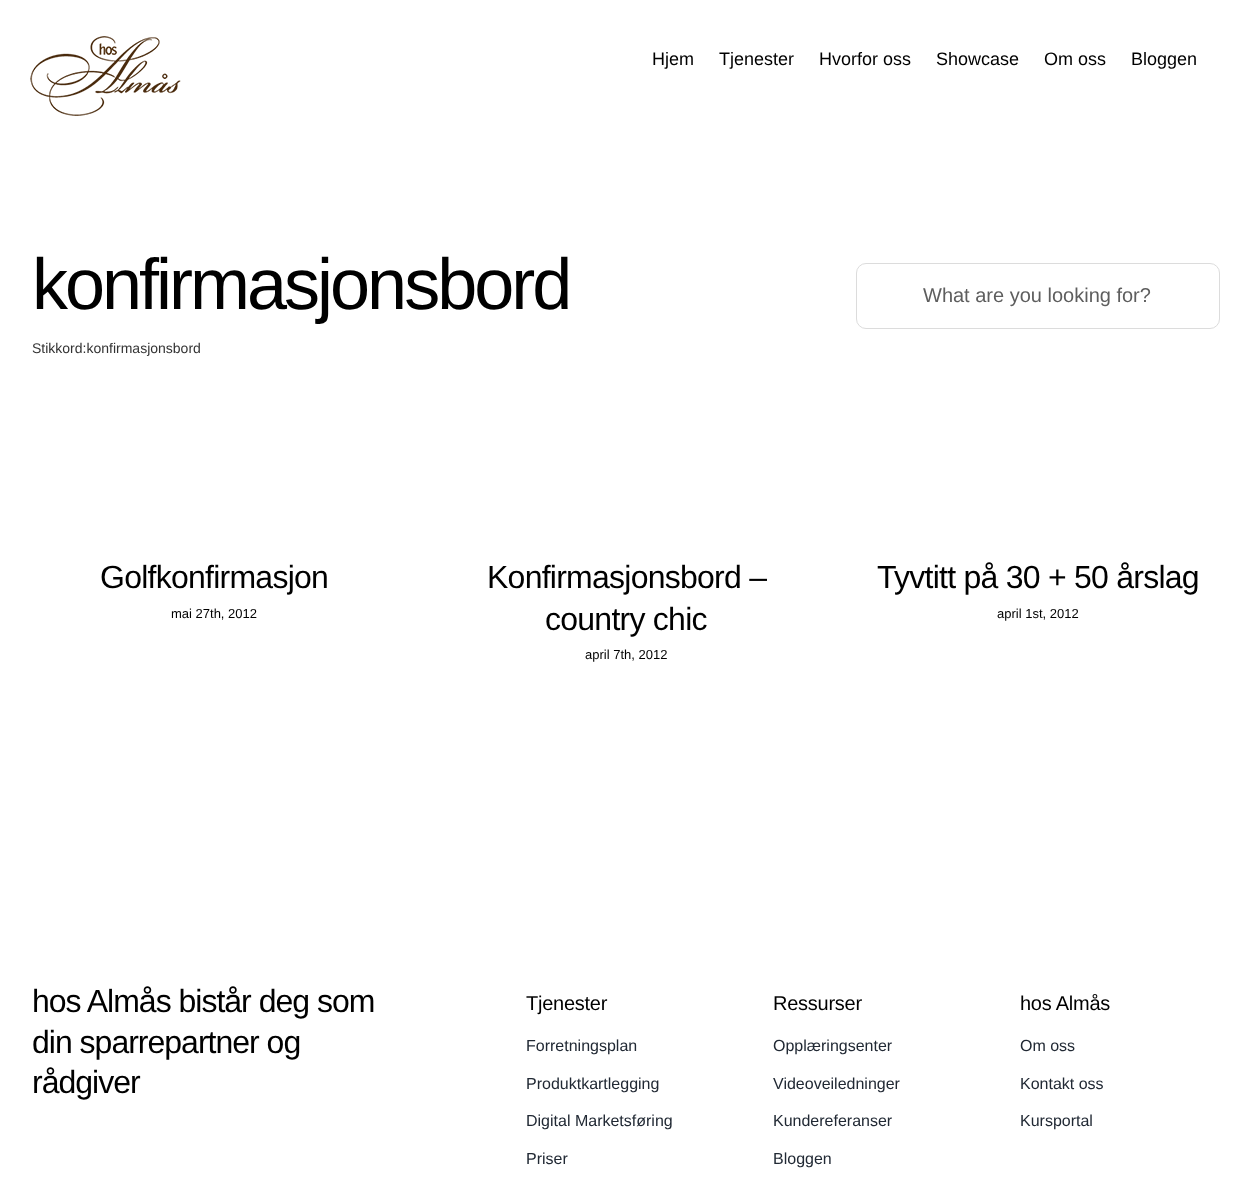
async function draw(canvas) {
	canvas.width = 1252;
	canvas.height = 1188;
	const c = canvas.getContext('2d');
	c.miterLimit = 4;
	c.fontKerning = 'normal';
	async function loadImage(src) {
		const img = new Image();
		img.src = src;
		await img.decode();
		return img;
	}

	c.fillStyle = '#fff';
	c.fillRect(0, 0, 1252, 1188);
	c.drawImage(await loadImage('img1.png'), 30, 36, 151, 80);
	c.font = '18px Liberation Sans';
	c.fillStyle = '#000';
	for (const [text, x, y] of [
		['Hjem', 652, 65],
		['Tjenester', 719, 65],
		['Hvorfor oss', 819, 65],
		['Showcase', 936, 65],
		['Om oss', 1044, 65],
		['Bloggen', 1131, 65],
	]) {
		c.fillText(text, x, y);
	}
	c.letterSpacing = '-3px';
	c.font = '72px Liberation Sans';
	c.fillText('konfirmasjonsbord', 32, 309);
	c.letterSpacing = '0px';
	c.font = '14px Liberation Sans';
	c.fillStyle = '#333';
	c.fillText('Stikkord:konfirmasjonsbord', 32, 353);
	c.beginPath();
	c.roundRect(856.5, 263.5, 363, 65, 9.5);
	c.strokeStyle = '#dcdcdc';
	c.stroke();
	c.font = '20px Liberation Sans';
	c.fillStyle = '#5e5e5e';
	c.fillText('What are you looking for?', 923, 302);
	c.letterSpacing = '-0.75px';
	c.font = '32px Liberation Sans';
	c.fillStyle = '#000';
	c.fillText('Golfkonfirmasjon', 100, 588);
	c.letterSpacing = '0px';
	c.font = '13px Liberation Sans';
	c.fillText('mai 27th, 2012', 171, 618);
	c.letterSpacing = '-0.75px';
	c.font = '32px Liberation Sans';
	c.fillText('Konfirmasjonsbord –', 487, 588);
	c.fillText('country chic', 545, 630);
	c.letterSpacing = '0px';
	c.font = '13px Liberation Sans';
	c.fillText('april 7th, 2012', 585, 659);
	c.letterSpacing = '-0.75px';
	c.font = '32px Liberation Sans';
	c.fillText('Tyvtitt på 30 + 50 årslag', 877, 588);
	c.letterSpacing = '0px';
	c.font = '13px Liberation Sans';
	c.fillText('april 1st, 2012', 997, 618);
	c.letterSpacing = '-1px';
	c.font = '32px Liberation Sans';
	for (const [text, x, y] of [
		['hos Almås bistår deg som', 32, 1012],
		['din sparrepartner og', 32, 1053],
		['rådgiver', 32, 1093],
	]) {
		c.fillText(text, x, y);
	}
	c.letterSpacing = '-0.25px';
	c.font = '20px Liberation Sans';
	c.fillText('Tjenester', 526, 1010);
	c.letterSpacing = '0px';
	c.font = '16px Liberation Sans';
	c.fillStyle = '#212934';
	for (const [text, x, y] of [
		['Forretningsplan', 526, 1051],
		['Produktkartlegging', 526, 1089],
		['Digital Marketsføring', 526, 1126],
		['Priser', 526, 1164],
	]) {
		c.fillText(text, x, y);
	}
	c.letterSpacing = '-0.25px';
	c.font = '20px Liberation Sans';
	c.fillStyle = '#000';
	c.fillText('Ressurser', 773, 1010);
	c.letterSpacing = '0px';
	c.font = '16px Liberation Sans';
	c.fillStyle = '#212934';
	for (const [text, x, y] of [
		['Opplæringsenter', 773, 1051],
		['Videoveiledninger', 773, 1089],
		['Kundereferanser', 773, 1126],
		['Bloggen', 773, 1164],
	]) {
		c.fillText(text, x, y);
	}
	c.letterSpacing = '-0.25px';
	c.font = '20px Liberation Sans';
	c.fillStyle = '#000';
	c.fillText('hos Almås', 1020, 1010);
	c.letterSpacing = '0px';
	c.font = '16px Liberation Sans';
	c.fillStyle = '#212934';
	for (const [text, x, y] of [
		['Om oss', 1020, 1051],
		['Kontakt oss', 1020, 1089],
		['Kursportal', 1020, 1126],
	]) {
		c.fillText(text, x, y);
	}
}

draw(document.querySelector('canvas'));
